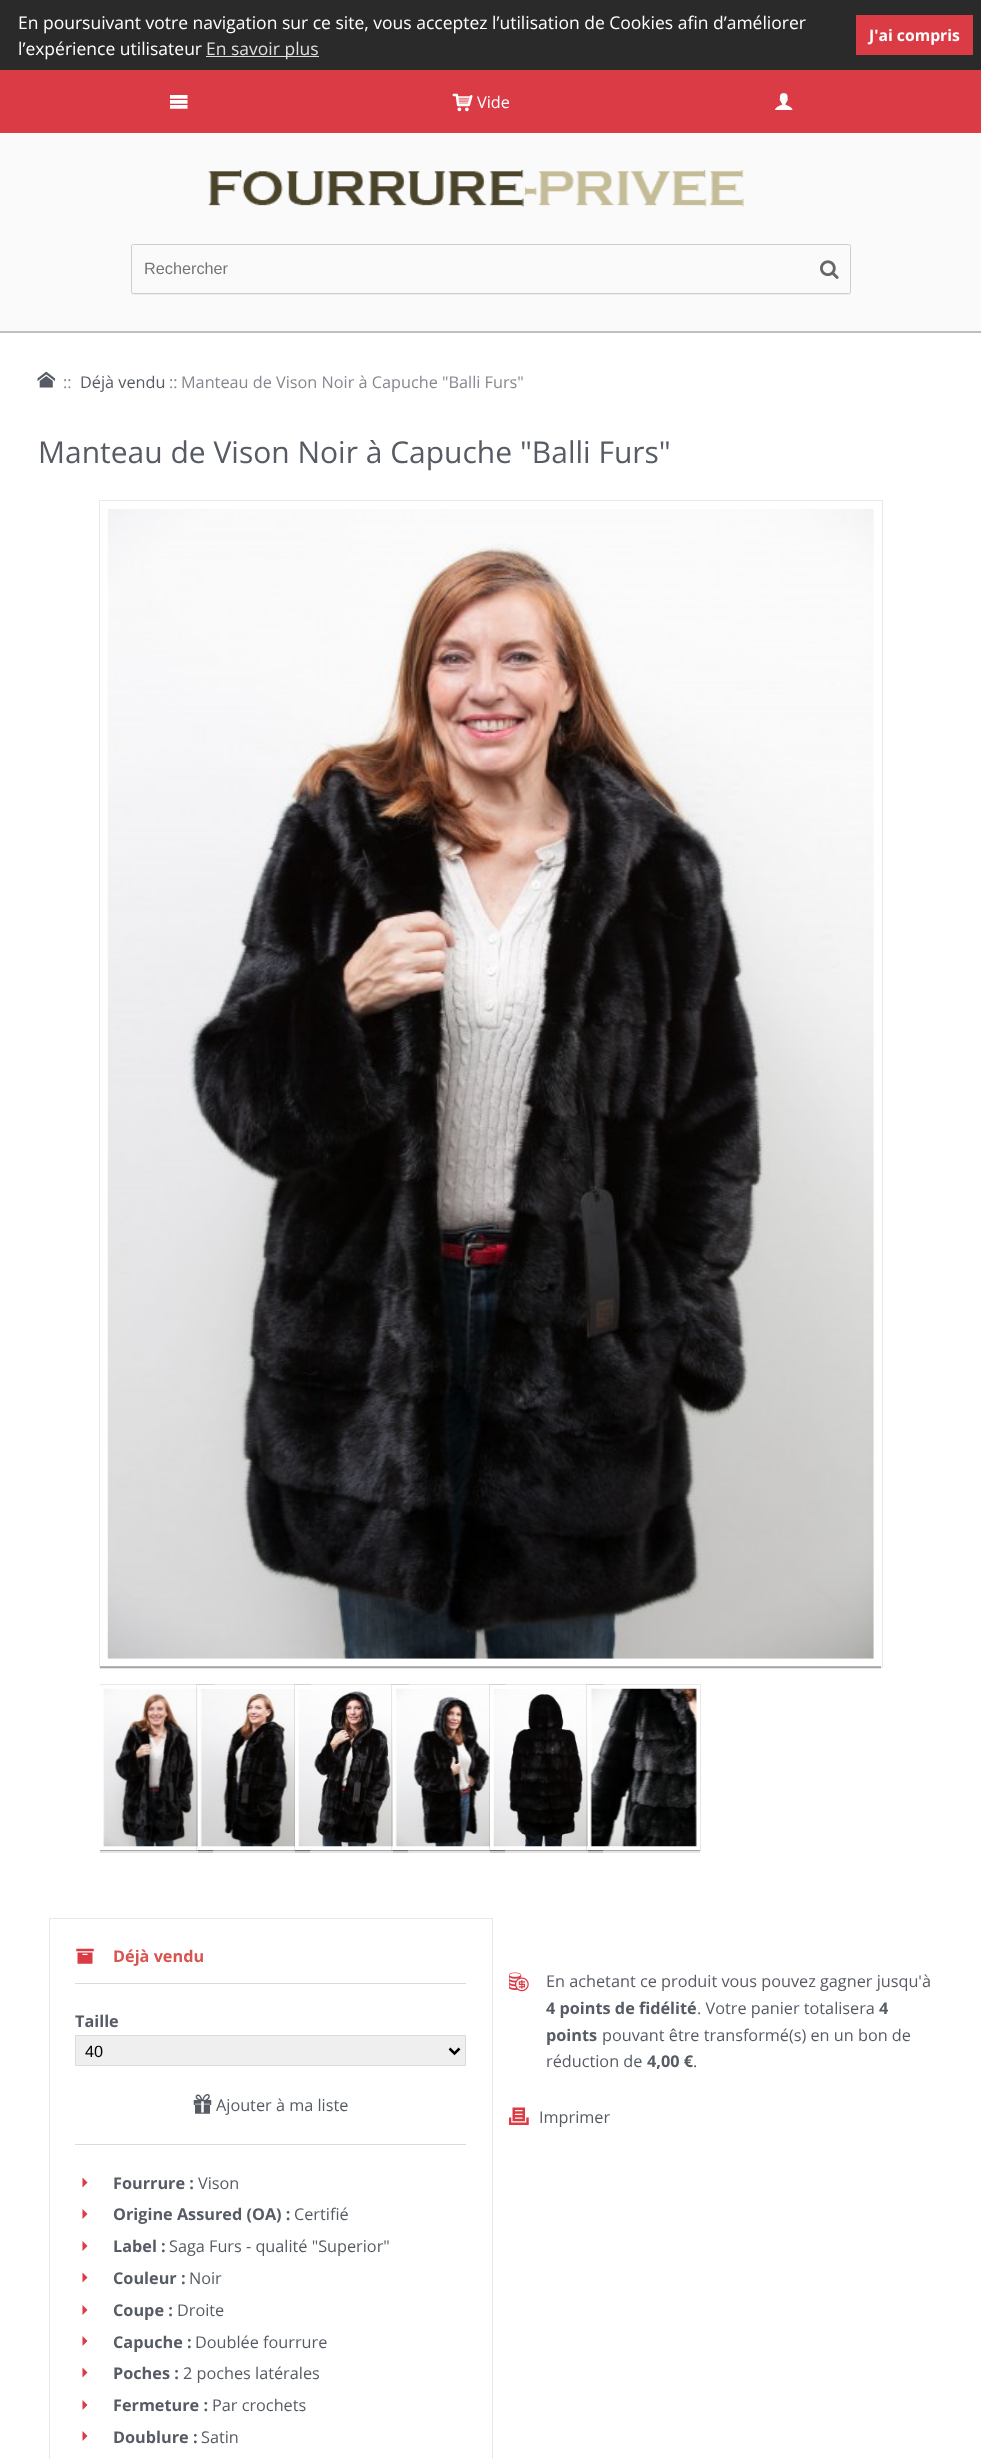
async function draw(canvas) {
	canvas.width = 981;
	canvas.height = 2459;
	const c = canvas.getContext('2d');
	c.miterLimit = 4;
	c.fontKerning = 'normal';
	async function loadImage(src) {
		const img = new Image();
		img.src = src;
		await img.decode();
		return img;
	}

	c.fillStyle = '#fff';
	c.fillRect(0, 0, 981, 2459);
	c.fillStyle = '#2a2a2a';
	c.fillRect(0, 0, 981, 70);
	c.font = '17.5px Open Sans';
	c.fillStyle = '#fff';
	c.fillText('En poursuivant votre navigation sur ce site, vous acceptez l’utilisation de Cookies afin d’améliorer', 18, 29);
	c.fillText('l’expérience utilisateur', 18, 55);
	c.fillStyle = '#dfdfdf';
	c.fillRect(206, 56, 113, 1);
	c.fillText('En savoir plus', 206, 55);
	c.fillStyle = '#da3b44';
	c.fillRect(856, 15, 117, 40);
	c.font = 'bold 15.75px Open Sans';
	c.fillStyle = '#fff';
	c.fillText('J\'ai compris', 869, 41);
	c.fillStyle = '#00000040';
	c.filter = 'blur(0.5px)';
	c.beginPath();
	c.rect(0, 134, 981, 199);
	c.fill();
	c.filter = 'none';
	c.fillStyle = '#da3b44';
	c.fillRect(0, 70, 981, 63);
	c.drawImage(await loadImage('img1.png'), 170, 95, 18, 14);
	c.drawImage(await loadImage('img2.png'), 452, 93, 21, 19);
	c.font = '16.25px Open Sans';
	c.fillStyle = '#fff';
	c.fillText('Vide', 477, 108);
	c.drawImage(await loadImage('img3.png'), 775, 93, 18, 17);
	c.fillStyle = '#fafafa';
	c.fillRect(0, 134, 981, 197);
	c.drawImage(await loadImage('img4.png'), 208, 170, 536, 37);
	c.fillStyle = '#0000000d';
	c.filter = 'blur(0.5px)';
	c.beginPath();
	c.roundRect(131, 245, 720, 50, 2.5);
	c.fill();
	c.filter = 'none';
	c.fillStyle = '#fafafa';
	c.beginPath();
	c.roundRect(131.5, 244.5, 719, 49, 2);
	c.fill();
	c.strokeStyle = '#cecece';
	c.stroke();
	c.font = '16.25px Liberation Sans';
	c.fillStyle = '#757575';
	c.fillText('Rechercher', 144, 274);
	c.drawImage(await loadImage('img5.png'), 820, 260, 19, 19);
	c.drawImage(await loadImage('img6.png'), 37, 371, 18, 17);
	c.font = '16.25px Open Sans';
	c.fillStyle = '#84888f';
	c.fillText('::', 63, 388);
	c.fillStyle = '#565b64';
	c.fillText('Déjà vendu', 80, 388);
	c.fillStyle = '#84888f';
	c.fillText('::', 169, 388);
	c.fillText('Manteau de Vison Noir à Capuche "Balli Furs"', 181, 388);
	c.font = '30px Open Sans';
	c.fillStyle = '#565b64';
	c.fillText('Manteau de Vison Noir à Capuche "Balli Furs"', 38, 463);
	c.save();
	c.beginPath();
	c.rect(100, 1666, 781, 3);
	c.clip();
	c.fillStyle = '#0000001a';
	c.filter = 'blur(0.5px)';
	c.beginPath();
	c.rect(100, 504, 781, 1165);
	c.fill();
	c.filter = 'none';
	c.restore();
	c.save();
	c.beginPath();
	c.moveTo(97, 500);
	c.lineTo(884, 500);
	c.lineTo(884, 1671);
	c.lineTo(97, 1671);
	c.closePath();
	c.moveTo(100, 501);
	c.lineTo(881, 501);
	c.lineTo(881, 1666);
	c.lineTo(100, 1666);
	c.closePath();
	c.clip('evenodd');
	c.fillStyle = '#00000033';
	c.filter = 'blur(0.5px)';
	c.beginPath();
	c.rect(100, 503, 781, 1165);
	c.fill();
	c.filter = 'none';
	c.restore();
	c.strokeStyle = '#00000017';
	c.strokeRect(99.5, 500.5, 783, 1167);
	c.drawImage(await loadImage('img7.png'), 107, 509, 767, 1150);
	c.fillStyle = '#00000033';
	c.filter = 'blur(0.5px)';
	c.beginPath();
	c.rect(100, 1686, 113, 165);
	c.fill();
	c.filter = 'none';
	c.fillStyle = '#0000001a';
	c.filter = 'blur(0.5px)';
	c.beginPath();
	c.rect(100, 1688, 113, 165);
	c.fill();
	c.filter = 'none';
	c.save();
	c.beginPath();
	c.rect(100, 1679, 781, 177);
	c.clip();
	c.strokeRect(99.5, 1684.5, 114, 166);
	c.restore();
	c.fillStyle = '#fff';
	c.fillRect(100, 1685, 98, 165);
	c.drawImage(await loadImage('img8.png'), 103, 1688, 95, 159);
	c.fillStyle = '#00000033';
	c.filter = 'blur(0.5px)';
	c.beginPath();
	c.rect(198, 1686, 112, 165);
	c.fill();
	c.filter = 'none';
	c.fillStyle = '#0000001a';
	c.filter = 'blur(0.5px)';
	c.beginPath();
	c.rect(198, 1688, 112, 165);
	c.fill();
	c.filter = 'none';
	c.strokeRect(196.5, 1684.5, 114, 166);
	c.fillStyle = '#fff';
	c.fillRect(198, 1685, 97, 165);
	c.drawImage(await loadImage('img9.png'), 200, 1689, 95, 158);
	c.fillStyle = '#00000033';
	c.filter = 'blur(0.5px)';
	c.beginPath();
	c.rect(295, 1686, 113, 165);
	c.fill();
	c.filter = 'none';
	c.fillStyle = '#0000001a';
	c.filter = 'blur(0.5px)';
	c.beginPath();
	c.rect(295, 1688, 113, 165);
	c.fill();
	c.filter = 'none';
	c.strokeRect(294.5, 1684.5, 114, 166);
	c.fillStyle = '#fff';
	c.fillRect(295, 1685, 98, 165);
	c.drawImage(await loadImage('img10.png'), 298, 1689, 95, 158);
	c.fillStyle = '#00000033';
	c.filter = 'blur(0.5px)';
	c.beginPath();
	c.rect(393, 1686, 112, 165);
	c.fill();
	c.filter = 'none';
	c.fillStyle = '#0000001a';
	c.filter = 'blur(0.5px)';
	c.beginPath();
	c.rect(393, 1688, 112, 165);
	c.fill();
	c.filter = 'none';
	c.strokeRect(391.5, 1684.5, 114, 166);
	c.fillStyle = '#fff';
	c.fillRect(393, 1685, 97, 165);
	c.drawImage(await loadImage('img11.png'), 395, 1688, 95, 159);
	c.fillStyle = '#00000033';
	c.filter = 'blur(0.5px)';
	c.beginPath();
	c.rect(490, 1686, 113, 165);
	c.fill();
	c.filter = 'none';
	c.fillStyle = '#0000001a';
	c.filter = 'blur(0.5px)';
	c.beginPath();
	c.rect(490, 1688, 113, 165);
	c.fill();
	c.filter = 'none';
	c.strokeRect(489.5, 1684.5, 114, 166);
	c.fillStyle = '#fff';
	c.fillRect(490, 1685, 98, 165);
	c.drawImage(await loadImage('img12.png'), 493, 1689, 95, 158);
	c.fillStyle = '#00000033';
	c.filter = 'blur(0.5px)';
	c.beginPath();
	c.rect(588, 1686, 112, 165);
	c.fill();
	c.filter = 'none';
	c.fillStyle = '#0000001a';
	c.filter = 'blur(0.5px)';
	c.beginPath();
	c.rect(588, 1688, 112, 165);
	c.fill();
	c.filter = 'none';
	c.strokeRect(586.5, 1684.5, 114, 166);
	c.fillStyle = '#fff';
	c.fillRect(588, 1685, 112, 165);
	c.drawImage(await loadImage('img13.png'), 590, 1688, 107, 159);
	c.strokeRect(49.5, 1918.5, 443, 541);
	c.drawImage(await loadImage('img14.png'), 76, 1948, 18, 16);
	c.font = 'bold 16.25px Open Sans';
	c.fillStyle = '#d9534f';
	c.fillText('Déjà vendu', 113, 1962);
	c.fillStyle = '#d7dce2';
	c.fillRect(75, 1983, 391, 1);
	c.fillStyle = '#565b64';
	c.fillText('Taille', 75, 2027);
	c.fillStyle = '#efefef';
	c.beginPath();
	c.rect(75.5, 2035.5, 390, 30);
	c.fill();
	c.strokeStyle = '#d7dce2';
	c.stroke();
	c.beginPath();
	c.moveTo(449.5, 2048.5);
	c.lineTo(454.5, 2053.5);
	c.lineTo(459.5, 2048.5);
	c.strokeStyle = '#000';
	c.lineWidth = 2.5;
	c.stroke();
	c.font = '16.25px Liberation Sans';
	c.fillStyle = '#000';
	c.fillText('40', 85, 2057);
	c.drawImage(await loadImage('img15.png'), 193, 2094, 19, 20);
	c.font = '16.25px Open Sans';
	c.fillStyle = '#565b64';
	c.fillText('Ajouter à ma liste', 216, 2111);
	c.fillStyle = '#d7dce2';
	c.fillRect(75, 2144, 391, 1);
	c.fillStyle = '#da3b44';
	c.beginPath();
	c.moveTo(82.5, 2187.5);
	c.lineTo(87.5, 2182.5);
	c.lineTo(82.5, 2177.5);
	c.closePath();
	c.fill();
	c.font = 'bold 16.25px Open Sans';
	c.fillStyle = '#565b64';
	c.fillText('Fourrure :', 113, 2189);
	c.font = '16.25px Open Sans';
	c.fillText('Vison', 198, 2189);
	c.fillStyle = '#da3b44';
	c.beginPath();
	c.moveTo(82.5, 2219);
	c.lineTo(87.5, 2214);
	c.lineTo(82.5, 2209);
	c.closePath();
	c.fill();
	c.font = 'bold 16.25px Open Sans';
	c.fillStyle = '#565b64';
	c.fillText('Origine Assured (OA) :', 113, 2220);
	c.font = '16.25px Open Sans';
	c.fillText('Certifié', 294, 2220);
	c.fillStyle = '#da3b44';
	c.beginPath();
	c.moveTo(82.5, 2251);
	c.lineTo(87.5, 2246);
	c.lineTo(82.5, 2241);
	c.closePath();
	c.fill();
	c.font = 'bold 16.25px Open Sans';
	c.fillStyle = '#565b64';
	c.fillText('Label :', 113, 2252);
	c.font = '16.25px Open Sans';
	c.fillText('Saga Furs - qualité "Superior"', 169, 2252);
	c.fillStyle = '#da3b44';
	c.beginPath();
	c.moveTo(82.5, 2282.5);
	c.lineTo(87.5, 2277.5);
	c.lineTo(82.5, 2272.5);
	c.closePath();
	c.fill();
	c.font = 'bold 16.25px Open Sans';
	c.fillStyle = '#565b64';
	c.fillText('Couleur :', 113, 2284);
	c.font = '16.25px Open Sans';
	c.fillText('Noir', 189, 2284);
	c.fillStyle = '#da3b44';
	c.beginPath();
	c.moveTo(82.5, 2315);
	c.lineTo(87.5, 2310);
	c.lineTo(82.5, 2305);
	c.closePath();
	c.fill();
	c.font = 'bold 16.25px Open Sans';
	c.fillStyle = '#565b64';
	c.fillText('Coupe :', 113, 2316);
	c.font = '16.25px Open Sans';
	c.fillText('Droite', 177, 2316);
	c.fillStyle = '#da3b44';
	c.beginPath();
	c.moveTo(82.5, 2346);
	c.lineTo(87.5, 2341);
	c.lineTo(82.5, 2336);
	c.closePath();
	c.fill();
	c.font = 'bold 16.25px Open Sans';
	c.fillStyle = '#565b64';
	c.fillText('Capuche :', 113, 2348);
	c.font = '16.25px Open Sans';
	c.fillText('Doublée fourrure', 195, 2348);
	c.fillStyle = '#da3b44';
	c.beginPath();
	c.moveTo(82.5, 2377.5);
	c.lineTo(87.5, 2372.5);
	c.lineTo(82.5, 2367.5);
	c.closePath();
	c.fill();
	c.font = 'bold 16.25px Open Sans';
	c.fillStyle = '#565b64';
	c.fillText('Poches :', 113, 2379);
	c.font = '16.25px Open Sans';
	c.fillText('2 poches latérales', 183, 2379);
	c.fillStyle = '#da3b44';
	c.beginPath();
	c.moveTo(82.5, 2410);
	c.lineTo(87.5, 2405);
	c.lineTo(82.5, 2400);
	c.closePath();
	c.fill();
	c.font = 'bold 16.25px Open Sans';
	c.fillStyle = '#565b64';
	c.fillText('Fermeture :', 113, 2411);
	c.font = '16.25px Open Sans';
	c.fillText('Par crochets', 212, 2411);
	c.fillStyle = '#da3b44';
	c.beginPath();
	c.moveTo(82.5, 2441);
	c.lineTo(87.5, 2436);
	c.lineTo(82.5, 2431);
	c.closePath();
	c.fill();
	c.font = 'bold 16.25px Open Sans';
	c.fillStyle = '#565b64';
	c.fillText('Doublure :', 113, 2443);
	c.font = '16.25px Open Sans';
	c.fillText('Satin', 201, 2443);
	c.drawImage(await loadImage('img16.png'), 509, 1972, 20, 20);
	c.fillText('En achetant ce produit vous pouvez gagner jusqu\'à', 546, 1987);
	c.font = 'bold 16.25px Open Sans';
	c.fillText('4 points de fidélité', 546, 2014);
	c.font = '16.25px Open Sans';
	c.fillText('. Votre panier totalisera', 697, 2014);
	c.font = 'bold 16.25px Open Sans';
	c.fillText('4', 879, 2014);
	c.fillText('points', 546, 2041);
	c.font = '16.25px Open Sans';
	c.fillText('pouvant être transformé(s) en un bon de', 602, 2041);
	c.fillText('réduction de', 546, 2067);
	c.font = 'bold 16.25px Open Sans';
	c.fillText('4,00 €', 647, 2067);
	c.font = '16.25px Open Sans';
	c.fillText('.', 693, 2067);
	c.drawImage(await loadImage('img17.png'), 509, 2107, 20, 18);
	c.fillText('Imprimer', 539, 2123);
}

draw(document.querySelector('canvas'));
